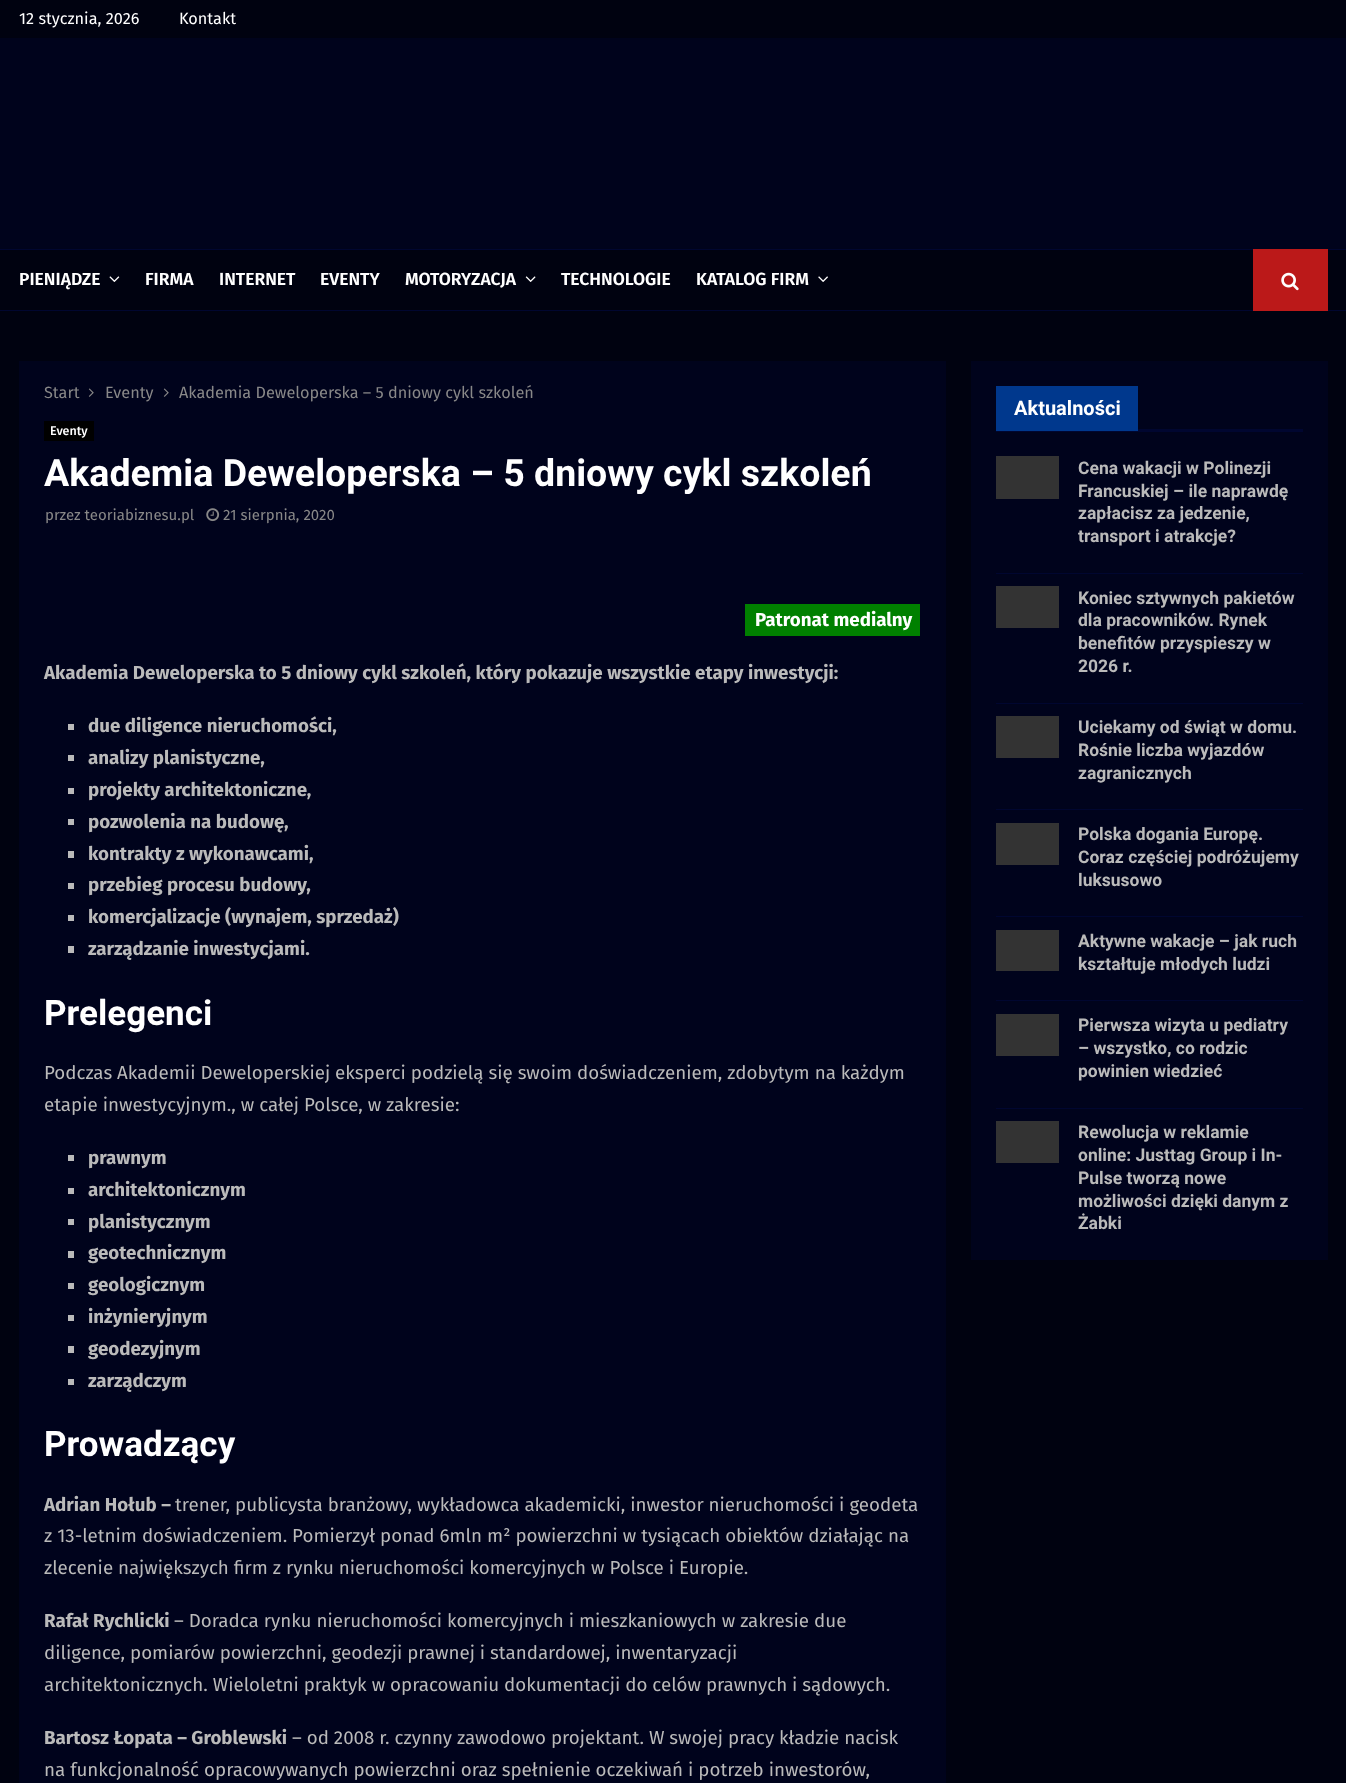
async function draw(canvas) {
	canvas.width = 1346;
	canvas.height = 1783;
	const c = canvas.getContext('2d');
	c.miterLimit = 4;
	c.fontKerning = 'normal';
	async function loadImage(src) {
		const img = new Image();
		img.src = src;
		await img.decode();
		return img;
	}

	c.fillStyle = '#000210';
	c.fillRect(0, 0, 1346, 1783);
	c.font = '16.25px Fira Sans';
	c.fillStyle = '#fff';
	c.fillText('12 stycznia, 2026', 19, 24);
	c.fillText('Kontakt', 179, 24);
	for (const [x, y, w, h, color] of [
		[0, 38, 1346, 211, '#00031c'],
		[0, 310, 1346, 1, '#000630'],
		[0, 249, 1346, 1, '#000630'],
	]) {
		c.fillStyle = color;
		c.fillRect(x, y, w, h);
	}
	c.font = '600 17.5px Fira Sans';
	c.fillStyle = '#fff';
	c.fillText('PIENIĄDZE', 19, 285);
	c.drawImage(await loadImage('img1.png'), 109, 276, 11, 6);
	for (const [text, x, y] of [
		['FIRMA', 145, 285],
		['INTERNET', 219, 285],
		['EVENTY', 320, 285],
		['MOTORYZACJA', 405, 285],
	]) {
		c.fillText(text, x, y);
	}
	c.drawImage(await loadImage('img2.png'), 525, 276, 11, 6);
	c.fillText('TECHNOLOGIE', 561, 285);
	c.fillText('KATALOG FIRM', 696, 285);
	c.drawImage(await loadImage('img3.png'), 818, 276, 10, 6);
	c.fillStyle = '#bb1919';
	c.fillRect(1253, 249, 75, 62);
	c.drawImage(await loadImage('img4.png'), 1281, 272, 18, 19);
	c.fillStyle = '#00031c';
	c.fillRect(19, 361, 927, 1422);
	c.font = '16.25px Fira Sans';
	c.fillStyle = '#888';
	c.fillText('Start', 44, 398);
	c.drawImage(await loadImage('img5.png'), 88, 388, 6, 9);
	c.fillText('Eventy', 105, 398);
	c.drawImage(await loadImage('img5.png'), 163, 388, 6, 9);
	c.fillText('Akademia Deweloperska – 5 dniowy cykl szkoleń', 179, 398);
	c.fillStyle = '#000';
	c.fillRect(44, 421, 50, 20);
	c.font = '500 12.5px Fira Sans';
	c.fillStyle = '#fff';
	c.fillText('Eventy', 50, 435);
	c.font = 'bold 37.5px Roboto';
	c.fillText('Akademia Deweloperska – 5 dniowy cykl szkoleń', 44, 486);
	c.font = '15px Fira Sans';
	c.fillStyle = '#888';
	c.fillText('przez teoriabiznesu.pl', 45, 520);
	c.drawImage(await loadImage('img6.png'), 206, 508, 14, 14);
	c.fillText('21 sierpnia, 2020', 223, 520);
	c.fillStyle = '#008000';
	c.fillRect(755, 604, 165, 32);
	c.font = 'bold 18.75px Fira Sans';
	c.fillStyle = '#fff';
	c.fillText('Patronat medialny', 755, 626);
	c.fillStyle = '#008000';
	c.fillRect(745, 604, 10, 32);
	c.fillStyle = '#bababa';
	c.fillText('Akademia Deweloperska to 5 dniowy cykl szkoleń, który pokazuje wszystkie etapy inwestycji:', 44, 679);
	c.fillRect(68, 724, 6, 6);
	c.fillText('due diligence nieruchomości,', 88, 732);
	c.fillRect(68, 755, 6, 6);
	c.fillText('analizy planistyczne,', 88, 764);
	c.fillRect(68, 788, 6, 6);
	c.fillText('projekty architektoniczne,', 88, 796);
	c.fillRect(68, 819, 6, 6);
	c.fillText('pozwolenia na budowę,', 88, 828);
	c.fillRect(68, 851, 6, 7);
	c.fillText('kontrakty z wykonawcami,', 88, 860);
	c.fillRect(68, 883, 6, 6);
	c.fillText('przebieg procesu budowy,', 88, 891);
	c.fillRect(68, 915, 6, 6);
	c.fillText('komercjalizacje (wynajem, sprzedaż)', 88, 923);
	c.fillRect(68, 946, 6, 7);
	c.fillText('zarządzanie inwestycjami.', 88, 955);
	c.font = 'bold 35px Roboto';
	c.fillStyle = '#fff';
	c.fillText('Prelegenci', 44, 1025);
	c.font = '18.75px Fira Sans';
	c.fillStyle = '#bababa';
	c.fillText('Podczas Akademii Deweloperskiej eksperci podzielą się swoim doświadczeniem, zdobytym na każdym', 44, 1079);
	c.fillText('etapie inwestycyjnym., w całej Polsce, w zakresie:', 44, 1111);
	c.fillRect(68, 1155, 6, 6);
	c.font = 'bold 18.75px Fira Sans';
	c.fillText('prawnym', 88, 1164);
	c.fillRect(68, 1188, 6, 6);
	c.fillText('architektonicznym', 88, 1196);
	c.fillRect(68, 1219, 6, 6);
	c.fillText('planistycznym', 88, 1228);
	c.fillRect(68, 1251, 6, 7);
	c.fillText('geotechnicznym', 88, 1259);
	c.fillRect(68, 1283, 6, 6);
	c.fillText('geologicznym', 88, 1291);
	c.fillRect(68, 1315, 6, 6);
	c.fillText('inżynieryjnym', 88, 1323);
	c.fillRect(68, 1346, 6, 7);
	c.fillText('geodezyjnym', 88, 1355);
	c.fillRect(68, 1379, 6, 6);
	c.fillText('zarządczym', 88, 1387);
	c.font = 'bold 35px Roboto';
	c.fillStyle = '#fff';
	c.fillText('Prowadzący', 44, 1456);
	c.font = 'bold 18.75px Fira Sans';
	c.fillStyle = '#bababa';
	c.fillText('Adrian Hołub –', 44, 1511);
	c.font = '18.75px Fira Sans';
	for (const [text, x, y] of [
		['trener, publicysta branżowy, wykładowca akademicki, inwestor nieruchomości i geodeta', 175, 1511],
		['z 13-letnim doświadczeniem. Pomierzył ponad 6mln m² powierzchni w tysiącach obiektów działając na', 44, 1542],
		['zlecenie największych firm z rynku nieruchomości komercyjnych w Polsce i Europie.', 44, 1574],
	]) {
		c.fillText(text, x, y);
	}
	c.font = 'bold 18.75px Fira Sans';
	c.fillText('Rafał Rychlicki', 44, 1627);
	c.font = '18.75px Fira Sans';
	for (const [text, x, y] of [
		['– Doradca rynku nieruchomości komercyjnych i mieszkaniowych w zakresie due', 174, 1627],
		['diligence, pomiarów powierzchni, geodezji prawnej i standardowej, inwentaryzacji', 44, 1659],
		['architektonicznych. Wieloletni praktyk w opracowaniu dokumentacji do celów prawnych i sądowych.', 44, 1691],
	]) {
		c.fillText(text, x, y);
	}
	c.font = 'bold 18.75px Fira Sans';
	c.fillText('Bartosz Łopata – Groblewski', 44, 1744);
	c.font = '18.75px Fira Sans';
	c.fillText('– od 2008 r. czynny zawodowo projektant. W swojej pracy kładzie nacisk', 292, 1744);
	c.fillText('na funkcjonalność opracowywanych powierzchni oraz spełnienie oczekiwań i potrzeb inwestorów,', 44, 1776);
	for (const [x, y, w, h, color] of [
		[971, 361, 357, 899, '#00031c'],
		[996, 429, 307, 3, '#000630'],
		[996, 386, 142, 45, '#00388d'],
	]) {
		c.fillStyle = color;
		c.fillRect(x, y, w, h);
	}
	c.font = 'bold 20px Roboto';
	c.fillStyle = '#fff';
	c.fillText('Aktualności', 1014, 415);
	c.fillStyle = '#000630';
	c.fillRect(996, 573, 307, 1);
	c.fillStyle = '#333';
	c.fillRect(996, 456, 63, 43);
	c.font = 'bold 17.5px Roboto';
	c.fillStyle = '#bababa';
	for (const [text, x, y] of [
		['Cena wakacji w Polinezji', 1078, 474],
		['Francuskiej – ile naprawdę', 1078, 497],
		['zapłacisz za jedzenie,', 1078, 519],
		['transport i atrakcje?', 1078, 542],
	]) {
		c.fillText(text, x, y);
	}
	c.fillStyle = '#000630';
	c.fillRect(996, 703, 307, 1);
	c.fillStyle = '#333';
	c.fillRect(996, 586, 63, 42);
	c.fillStyle = '#bababa';
	for (const [text, x, y] of [
		['Koniec sztywnych pakietów', 1078, 604],
		['dla pracowników. Rynek', 1078, 626],
		['benefitów przyspieszy w', 1078, 649],
		['2026 r.', 1078, 672],
	]) {
		c.fillText(text, x, y);
	}
	c.fillStyle = '#000630';
	c.fillRect(996, 809, 307, 1);
	c.fillStyle = '#333';
	c.fillRect(996, 716, 63, 42);
	c.fillStyle = '#bababa';
	for (const [text, x, y] of [
		['Uciekamy od świąt w domu.', 1078, 733],
		['Rośnie liczba wyjazdów', 1078, 756],
		['zagranicznych', 1078, 779],
	]) {
		c.fillText(text, x, y);
	}
	c.fillStyle = '#000630';
	c.fillRect(996, 916, 307, 1);
	c.fillStyle = '#333';
	c.fillRect(996, 823, 63, 42);
	c.fillStyle = '#bababa';
	for (const [text, x, y] of [
		['Polska dogania Europę.', 1078, 840],
		['Coraz częściej podróżujemy', 1078, 863],
		['luksusowo', 1078, 886],
	]) {
		c.fillText(text, x, y);
	}
	c.fillStyle = '#000630';
	c.fillRect(996, 1000, 307, 1);
	c.fillStyle = '#333';
	c.fillRect(996, 930, 63, 41);
	c.fillStyle = '#bababa';
	c.fillText('Aktywne wakacje – jak ruch', 1078, 947);
	c.fillText('kształtuje młodych ludzi', 1078, 970);
	c.fillStyle = '#000630';
	c.fillRect(996, 1108, 307, 1);
	c.fillStyle = '#333';
	c.fillRect(996, 1014, 63, 42);
	c.fillStyle = '#bababa';
	for (const [text, x, y] of [
		['Pierwsza wizyta u pediatry', 1078, 1031],
		['– wszystko, co rodzic', 1078, 1054],
		['powinien wiedzieć', 1078, 1077],
	]) {
		c.fillText(text, x, y);
	}
	c.fillStyle = '#333';
	c.fillRect(996, 1121, 63, 42);
	c.fillStyle = '#bababa';
	for (const [text, x, y] of [
		['Rewolucja w reklamie', 1078, 1138],
		['online: Justtag Group i In-', 1078, 1161],
		['Pulse tworzą nowe', 1078, 1184],
		['możliwości dzięki danym z', 1078, 1207],
		['Żabki', 1078, 1229],
	]) {
		c.fillText(text, x, y);
	}
}

draw(document.querySelector('canvas'));
